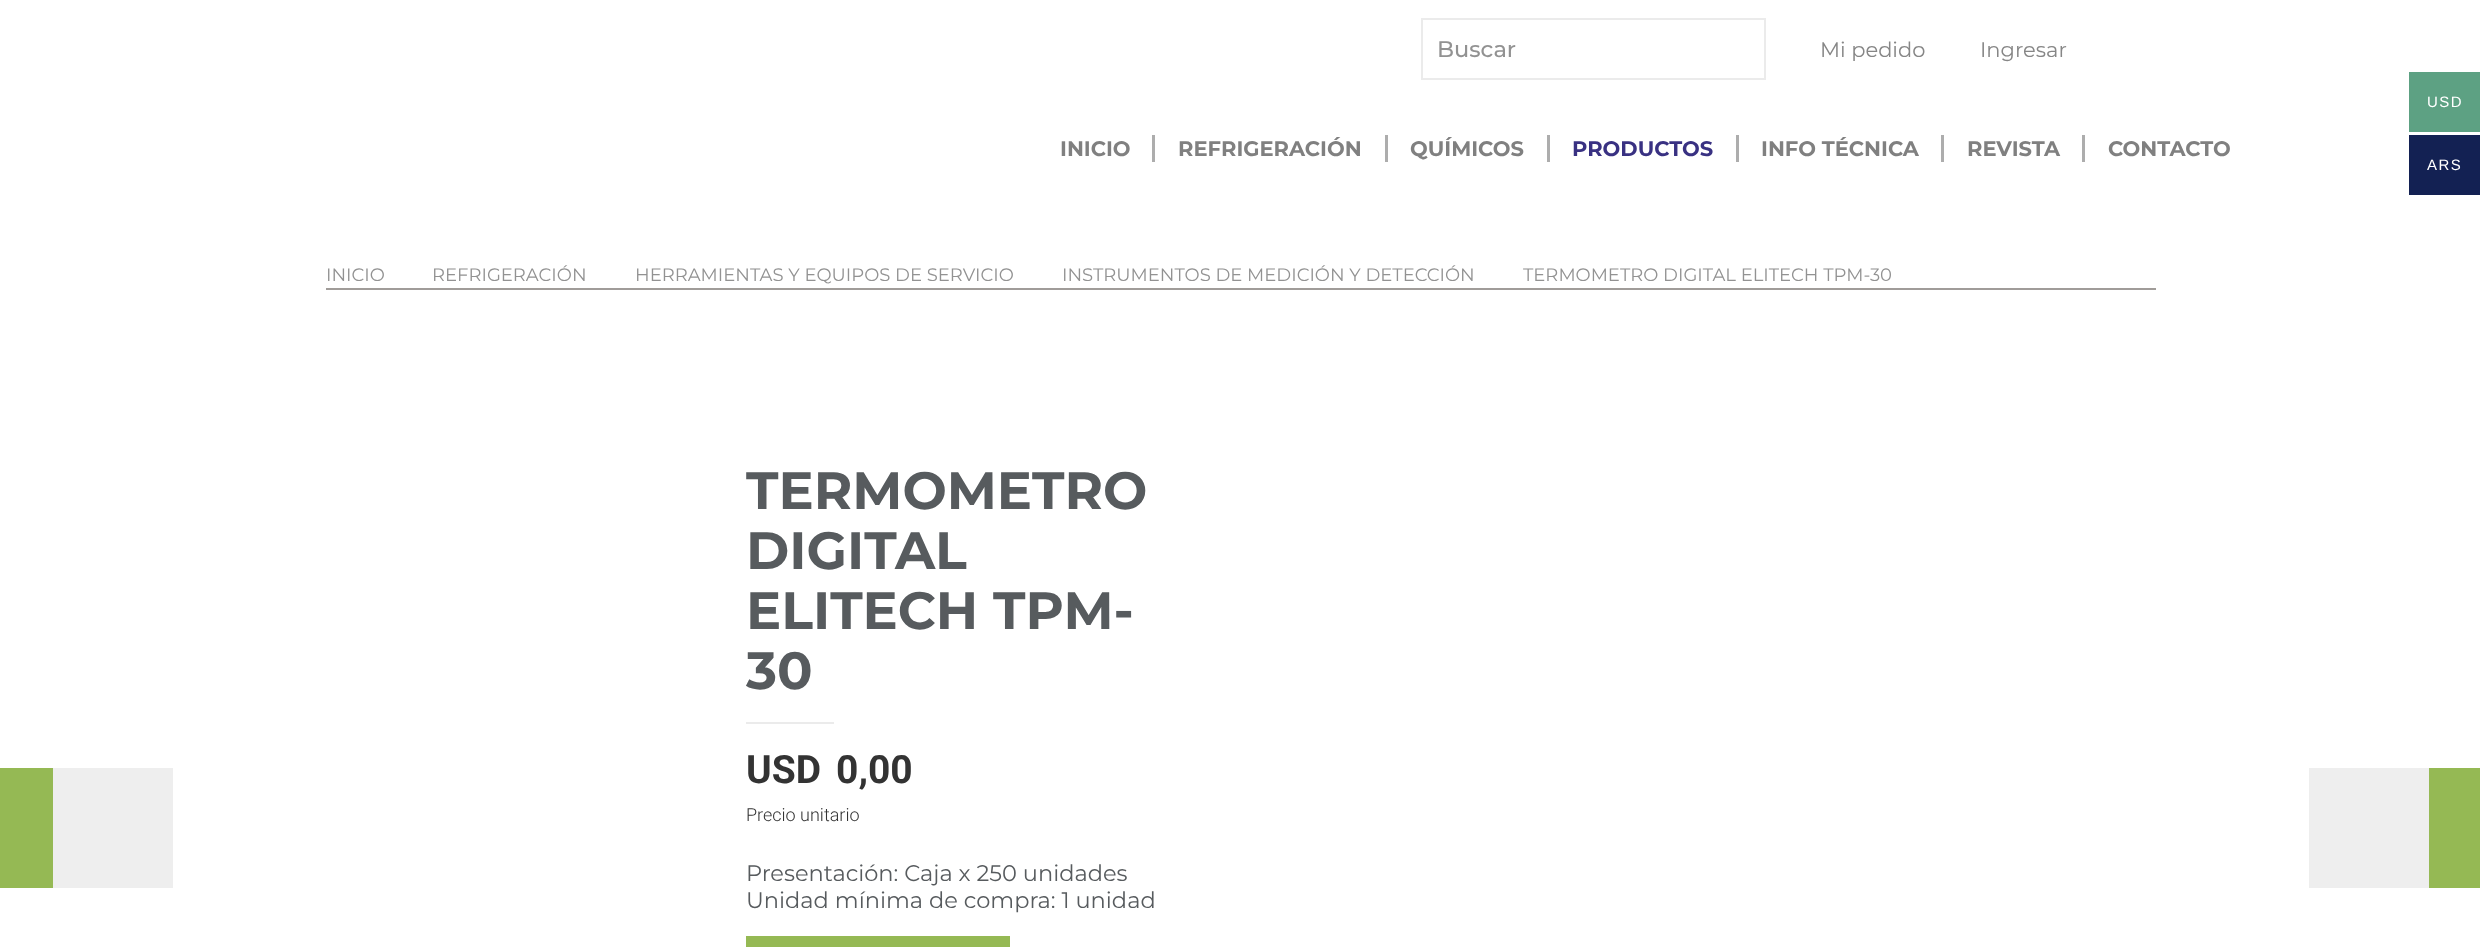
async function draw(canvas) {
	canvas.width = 2480;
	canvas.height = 947;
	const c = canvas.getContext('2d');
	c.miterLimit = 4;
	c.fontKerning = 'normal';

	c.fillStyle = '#fff';
	c.fillRect(0, 0, 2480, 947);
	c.strokeStyle = '#ebebeb';
	c.lineWidth = 2;
	c.strokeRect(1422, 19, 343, 60);
	c.font = '500 22.5px Montserrat';
	c.fillStyle = '#929292';
	c.fillText('Buscar', 1437, 57);
	c.font = '21px Montserrat';
	c.fillStyle = '#868686';
	c.fillText('Mi pedido', 1820, 57);
	c.fillText('Ingresar', 1980, 57);
	c.font = 'bold 21px Montserrat';
	c.fillStyle = '#808080';
	c.fillText('INICIO', 1060, 156);
	c.fillStyle = '#adadad';
	c.fillRect(1152, 135, 3, 27);
	c.fillStyle = '#808080';
	c.fillText('REFRIGERACIÓN', 1178, 156);
	c.fillStyle = '#adadad';
	c.fillRect(1385, 135, 3, 27);
	c.fillStyle = '#808080';
	c.fillText('QUÍMICOS', 1410, 156);
	c.fillStyle = '#adadad';
	c.fillRect(1547, 135, 3, 27);
	c.fillStyle = '#393182';
	c.fillText('PRODUCTOS', 1572, 156);
	c.fillStyle = '#adadad';
	c.fillRect(1736, 135, 3, 27);
	c.fillStyle = '#808080';
	c.fillText('INFO TÉCNICA', 1761, 156);
	c.fillStyle = '#adadad';
	c.fillRect(1941, 135, 3, 27);
	c.fillStyle = '#808080';
	c.fillText('REVISTA', 1967, 156);
	c.fillStyle = '#adadad';
	c.fillRect(2082, 135, 3, 27);
	c.fillStyle = '#808080';
	c.fillText('CONTACTO', 2108, 156);
	c.fillStyle = '#a09c99';
	c.fillRect(326, 288, 1830, 2);
	c.font = '18px Montserrat';
	c.fillStyle = '#929292';
	for (const [text, x, y] of [
		['INICIO', 326, 281],
		['REFRIGERACIÓN', 432, 281],
		['HERRAMIENTAS Y EQUIPOS DE SERVICIO', 635, 281],
		['INSTRUMENTOS DE MEDICIÓN Y DETECCIÓN', 1062, 281],
		['TERMOMETRO DIGITAL ELITECH TPM-30', 1523, 281],
	]) {
		c.fillText(text, x, y);
	}
	c.font = 'bold 52.5px Montserrat';
	c.fillStyle = '#575b5e';
	for (const [text, x, y] of [
		['TERMOMETRO', 746, 509],
		['DIGITAL', 746, 569],
		['ELITECH TPM-', 746, 629],
		['30', 746, 689],
	]) {
		c.fillText(text, x, y);
	}
	c.fillStyle = '#ebebeb';
	c.fillRect(746, 722, 88, 2);
	c.font = 'bold 39px Roboto';
	c.fillStyle = '#333';
	c.fillText('USD', 746, 783);
	c.fillText('0,00', 836, 783);
	c.font = '300 18px Roboto';
	c.fillText('Precio unitario', 746, 821);
	c.font = '22.5px Montserrat';
	c.fillStyle = '#575b5e';
	c.fillText('Presentación: Caja x 250 unidades', 746, 881);
	c.fillText('Unidad mínima de compra: 1 unidad', 746, 908);
	c.fillStyle = '#95b954';
	c.fillRect(746, 936, 264, 11);
	c.fillStyle = '#5da183';
	c.fillRect(2409, 72, 71, 60);
	c.letterSpacing = '1.5px';
	c.font = '15px Liberation Sans';
	c.fillStyle = '#fff';
	c.fillText('USD', 2427, 107);
	c.fillStyle = '#132153';
	c.fillRect(2409, 135, 71, 60);
	c.fillStyle = '#fff';
	c.fillText('ARS', 2427, 170);
	for (const [x, y, w, h, color] of [
		[0, 768, 53, 120, '#95b954'],
		[53, 768, 120, 120, '#eee'],
		[2309, 768, 120, 120, '#eee'],
		[2429, 768, 51, 120, '#95b954'],
	]) {
		c.fillStyle = color;
		c.fillRect(x, y, w, h);
	}
}

draw(document.querySelector('canvas'));
